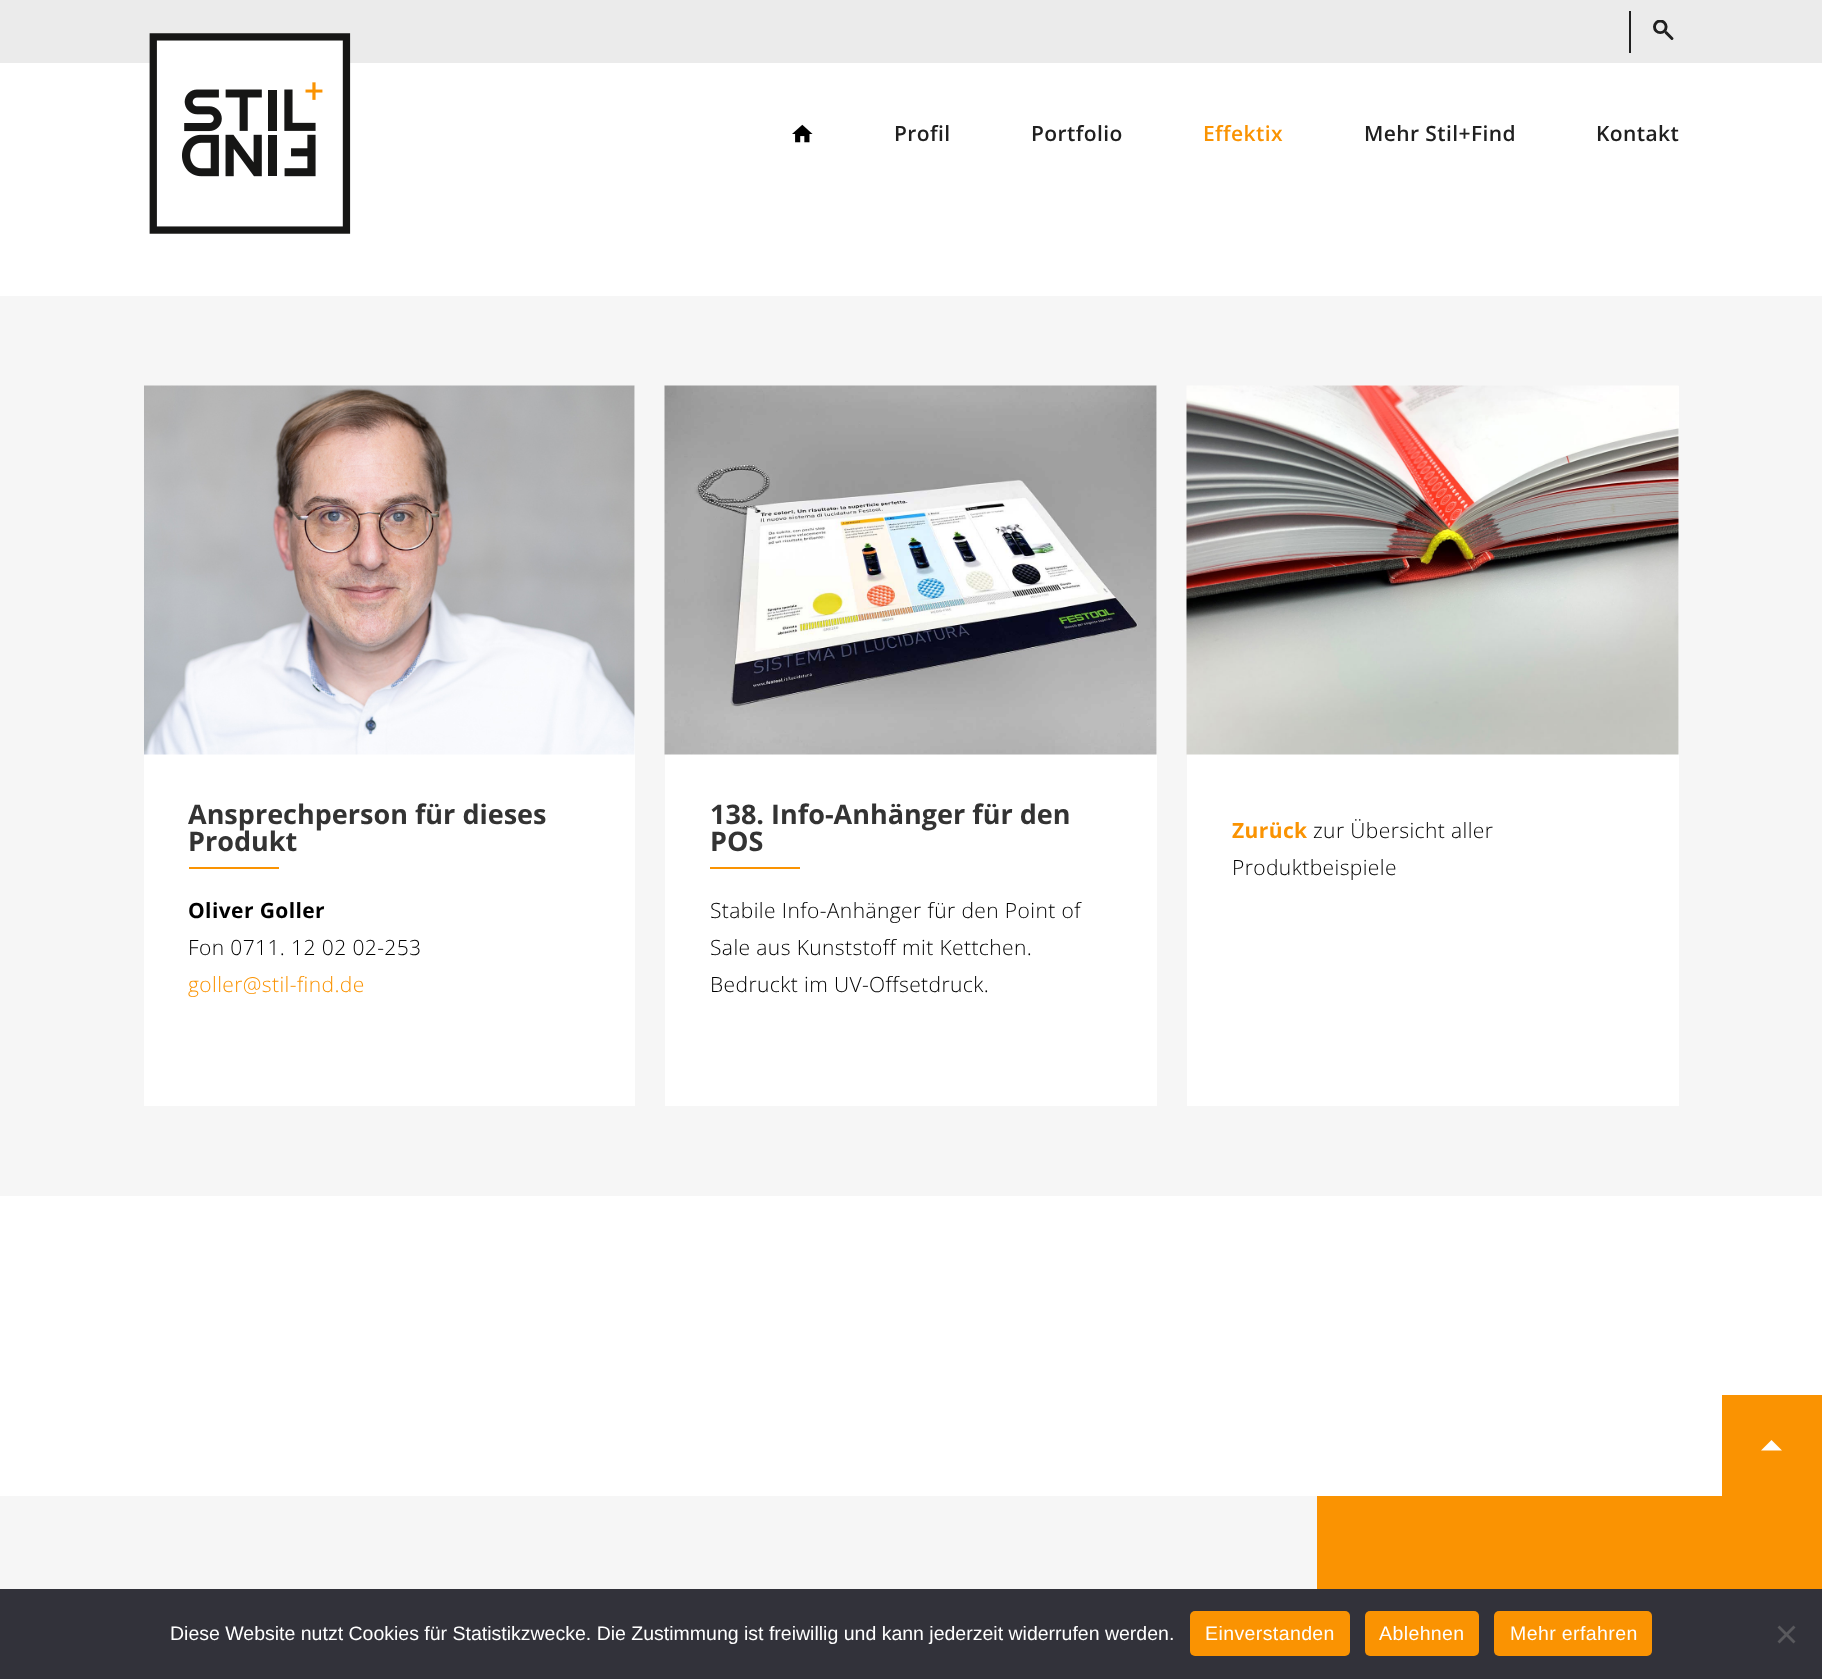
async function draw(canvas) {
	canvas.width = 1822;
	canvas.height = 1679;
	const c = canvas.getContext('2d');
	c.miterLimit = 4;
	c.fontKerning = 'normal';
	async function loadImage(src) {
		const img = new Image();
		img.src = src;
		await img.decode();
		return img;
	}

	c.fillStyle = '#fff';
	c.fillRect(0, 0, 1822, 1679);
	c.fillStyle = '#ebebeb';
	c.fillRect(0, 0, 1822, 63);
	c.fillStyle = '#202020';
	c.fillRect(1629, 11, 2, 42);
	c.drawImage(await loadImage('img1.png'), 1653, 20, 21, 20);
	c.drawImage(await loadImage('img2.png'), 149, 33, 202, 201);
	c.drawImage(await loadImage('img3.png'), 792, 124, 21, 19);
	c.letterSpacing = '0.4px';
	c.font = '600 21px Open Sans';
	c.fillText('Profil', 894, 141);
	c.fillText('Portfolio', 1031, 141);
	c.fillStyle = '#fa9302';
	c.fillText('Effektix', 1203, 141);
	c.fillStyle = '#202020';
	c.fillText('Mehr Stil+Find', 1364, 141);
	c.fillText('Kontakt', 1596, 141);
	c.fillStyle = '#f6f6f6';
	c.fillRect(0, 296, 1822, 900);
	c.fillStyle = '#fff';
	c.fillRect(144, 386, 491, 720);
	c.drawImage(await loadImage('img4.png'), 144, 385, 491, 370);
	c.letterSpacing = '0px';
	c.font = 'bold 27px Open Sans';
	c.fillStyle = '#333';
	c.fillText('Ansprechperson für dieses', 188, 824);
	c.fillText('Produkt', 188, 851);
	c.fillStyle = '#fa9302';
	c.fillRect(189, 867, 90, 2);
	c.letterSpacing = '0.4px';
	c.font = 'bold 21px Open Sans';
	c.fillStyle = '#000';
	c.fillText('Oliver Goller', 188, 918);
	c.font = '300 21px Open Sans';
	c.fillText('Fon 0711. 12 02 02-253', 188, 955);
	c.fillStyle = '#fa9302';
	c.fillText('goller@stil-find.de', 188, 992);
	c.fillStyle = '#fff';
	c.fillRect(665, 386, 492, 720);
	c.drawImage(await loadImage('img5.png'), 664, 385, 493, 370);
	c.letterSpacing = '0px';
	c.font = 'bold 27px Open Sans';
	c.fillStyle = '#333';
	c.fillText('138. Info-Anhänger für den', 710, 824);
	c.fillText('POS', 710, 851);
	c.fillStyle = '#fa9302';
	c.fillRect(710, 867, 90, 2);
	c.letterSpacing = '0.4px';
	c.font = '300 21px Open Sans';
	c.fillStyle = '#000';
	for (const [text, x, y] of [
		['Stabile Info-Anhänger für den Point of', 710, 918],
		['Sale aus Kunststoff mit Kettchen.', 710, 955],
		['Bedruckt im UV-Offsetdruck.', 710, 992],
	]) {
		c.fillText(text, x, y);
	}
	c.fillStyle = '#fff';
	c.fillRect(1187, 386, 492, 720);
	c.drawImage(await loadImage('img6.png'), 1186, 385, 493, 370);
	c.font = 'bold 21px Open Sans';
	c.fillStyle = '#fa9302';
	c.fillText('Zurück', 1232, 838);
	c.font = '300 21px Open Sans';
	c.fillStyle = '#000';
	c.fillText('zur Übersicht aller', 1313, 838);
	c.fillText('Produktbeispiele', 1232, 875);
	c.fillStyle = '#f6f6f6';
	c.fillRect(0, 1496, 1317, 93);
	c.fillStyle = '#fa9302';
	c.fillRect(1722, 1395, 100, 101);
	c.fillStyle = '#fffefe';
	c.beginPath();
	c.moveTo(1782, 1450.5);
	c.lineTo(1771.5, 1440);
	c.lineTo(1761, 1450.5);
	c.closePath();
	c.fill();
	c.fillStyle = '#fa9302';
	c.fillRect(1317, 1496, 505, 93);
	c.fillStyle = '#32323a';
	c.fillRect(0, 1589, 1822, 90);
	c.letterSpacing = '0px';
	c.font = '19.5px Liberation Sans';
	c.fillStyle = '#fff';
	c.fillText('Diese Website nutzt Cookies für Statistikzwecke. Die Zustimmung ist freiwillig und kann jederzeit widerrufen werden.', 170, 1640);
	c.fillStyle = '#fa9302';
	c.beginPath();
	c.roundRect(1190, 1611, 160, 45, 5);
	c.fill();
	c.letterSpacing = '0.4px';
	c.fillStyle = '#fff';
	c.fillText('Einverstanden', 1205, 1640);
	c.fillStyle = '#fa9302';
	c.beginPath();
	c.roundRect(1365, 1611, 114, 45, 5);
	c.fill();
	c.fillStyle = '#fff';
	c.fillText('Ablehnen', 1379, 1640);
	c.fillStyle = '#fa9302';
	c.beginPath();
	c.roundRect(1494, 1611, 158, 45, 5);
	c.fill();
	c.fillStyle = '#fff';
	c.fillText('Mehr erfahren', 1510, 1640);
	c.fillStyle = '#59595d';
	c.beginPath();
	c.moveTo(1793.5, 1625.5);
	c.lineTo(1795.5, 1627.5);
	c.lineTo(1779.5, 1643.5);
	c.lineTo(1777.5, 1641.5);
	c.closePath();
	c.fill();
	c.beginPath();
	c.moveTo(1777.5, 1627.5);
	c.lineTo(1779.5, 1625.5);
	c.lineTo(1795.5, 1641.5);
	c.lineTo(1793.5, 1643.5);
	c.closePath();
	c.fill();
}

draw(document.querySelector('canvas'));
